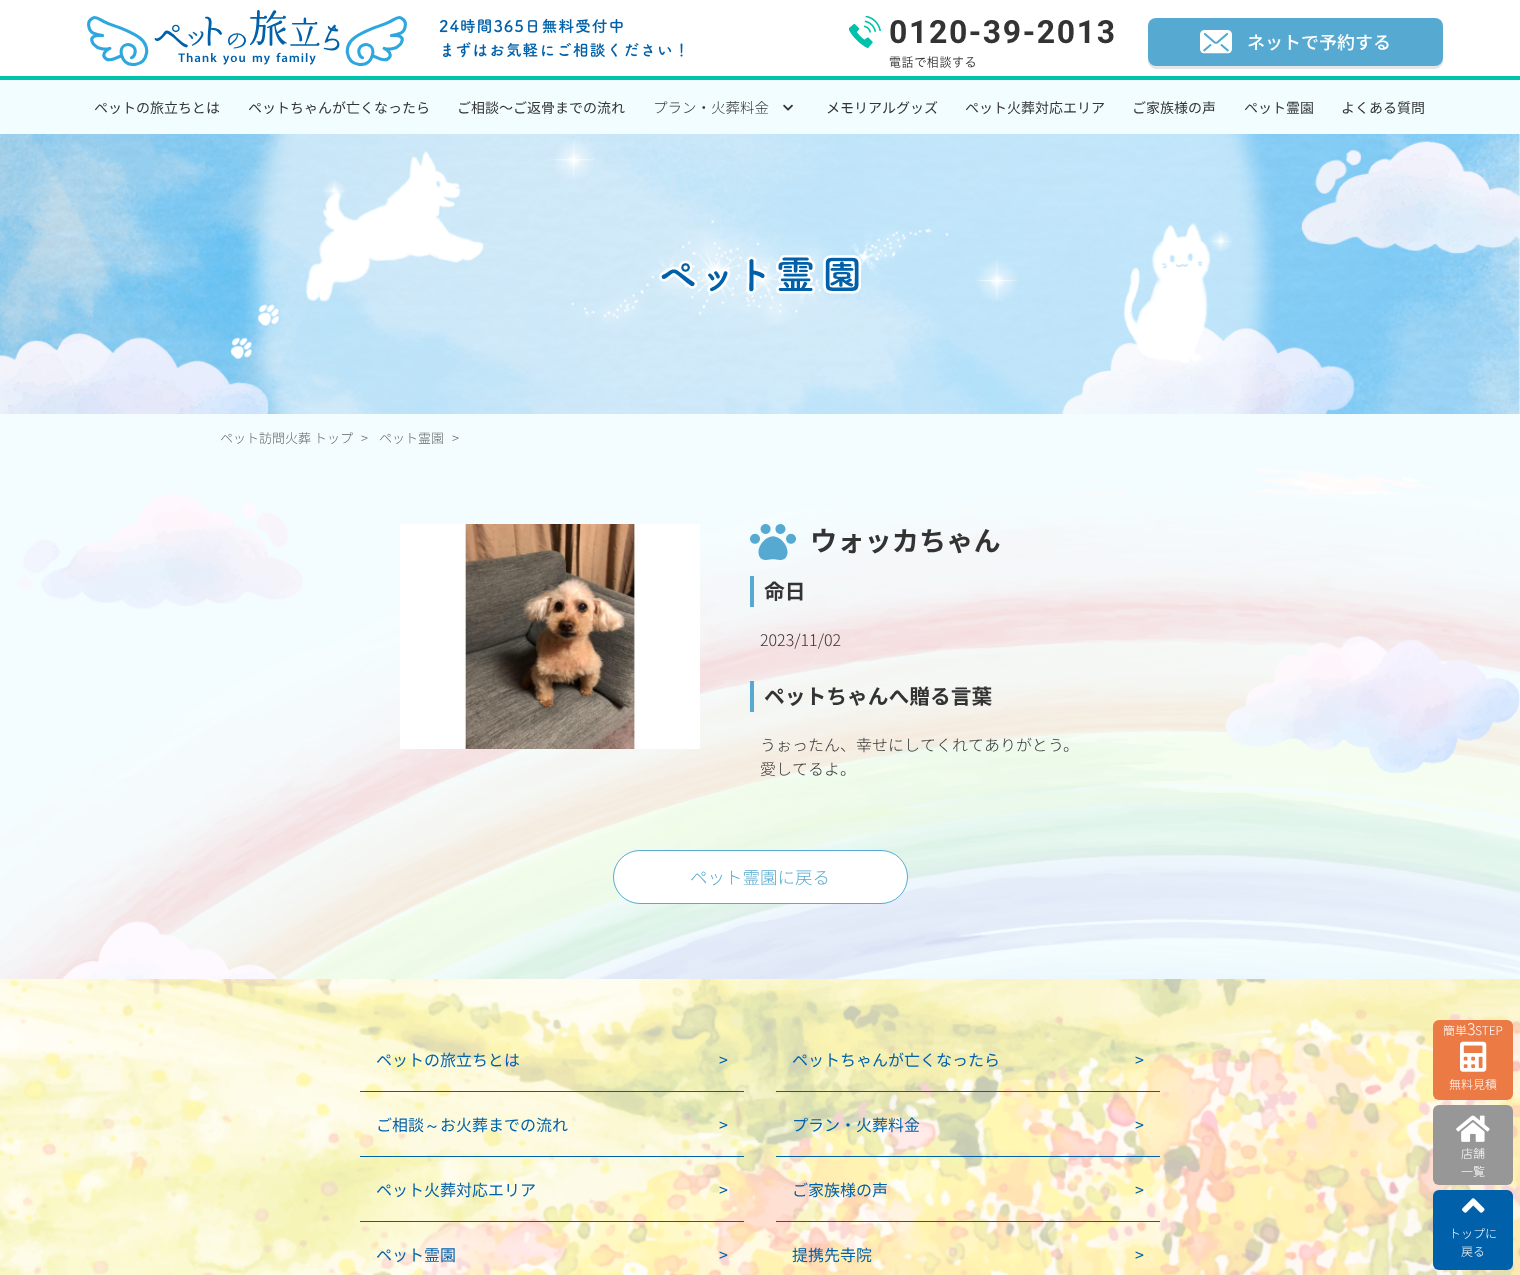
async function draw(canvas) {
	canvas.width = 1520;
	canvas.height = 1275;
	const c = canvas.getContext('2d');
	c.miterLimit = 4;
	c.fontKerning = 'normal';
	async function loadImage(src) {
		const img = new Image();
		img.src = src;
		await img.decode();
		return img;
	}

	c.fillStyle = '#fff';
	c.fillRect(0, 0, 1520, 1275);
	c.drawImage(await loadImage('img1.png'), 87, 10, 320, 56);
	c.drawImage(await loadImage('img2.png'), 439, 18, 244, 40);
	c.drawImage(await loadImage('img3.png'), 849, 16, 265, 52);
	c.fillStyle = '#e6e6e6';
	c.beginPath();
	c.moveTo(1148, 58);
	c.lineTo(1148, 61);
	c.bezierCurveTo(1148, 65, 1152, 69, 1156, 69);
	c.lineTo(1435, 69);
	c.bezierCurveTo(1439, 69, 1443, 65, 1443, 61);
	c.lineTo(1443, 58);
	c.bezierCurveTo(1443, 62, 1439, 66, 1435, 66);
	c.lineTo(1156, 66);
	c.bezierCurveTo(1152, 66, 1148, 62, 1148, 58);
	c.closePath();
	c.fill();
	c.fillStyle = '#56aad1';
	c.beginPath();
	c.roundRect(1148, 18, 295, 48, 8);
	c.fill();
	c.drawImage(await loadImage('img4.png'), 1200, 30, 32, 24);
	c.font = '500 18px Noto Sans JP';
	c.fillStyle = '#fff';
	c.fillText('ネットで予約する', 1247, 49);
	c.fillStyle = '#f1fdff';
	c.fillRect(0, 80, 1520, 54);
	c.fillStyle = '#00c1aa';
	c.fillRect(0, 76, 1520, 4);
	c.font = '14px Noto Sans JP';
	c.fillStyle = '#333';
	for (const [text, x, y] of [
		['ペットの旅立ちとは', 94, 113],
		['ペットちゃんが亡くなったら', 248, 113],
		['ご相談〜ご返骨までの流れ', 457, 113],
	]) {
		c.fillText(text, x, y);
	}
	c.font = '300 14.5px Noto Sans JP';
	c.fillText('プラン・火葬料金', 653, 113);
	c.drawImage(await loadImage('img5.png'), 783, 104, 10, 7);
	c.font = '14px Noto Sans JP';
	for (const [text, x, y] of [
		['メモリアルグッズ', 826, 113],
		['ペット火葬対応エリア', 965, 113],
		['ご家族様の声', 1132, 113],
		['ペット霊園', 1244, 113],
		['よくある質問', 1341, 113],
	]) {
		c.fillText(text, x, y);
	}
	c.drawImage(await loadImage('img6.png'), 0, 134, 1520, 280);
	c.drawImage(await loadImage('img7.png'), 230, 134, 1045, 280);
	c.drawImage(await loadImage('img8.png'), 659, 255, 202, 39);
	c.fillStyle = '#f3fdff';
	c.fillRect(0, 414, 1520, 565);
	c.drawImage(await loadImage('img9.png'), 0, 468, 1520, 511);
	c.font = '300 13px Noto Sans JP';
	c.fillStyle = '#666';
	for (const [text, x, y] of [
		['ペット訪問火葬 トップ', 220, 443],
		['>', 361, 443],
		['ペット霊園', 379, 443],
		['>', 452, 443],
	]) {
		c.fillText(text, x, y);
	}
	c.drawImage(await loadImage('img10.png'), 18, 494, 1502, 485);
	c.drawImage(await loadImage('img11.png'), 400, 524, 300, 225);
	c.drawImage(await loadImage('img12.png'), 750, 524, 46, 36);
	c.font = 'bold 27.25px Noto Sans JP';
	c.fillStyle = '#333';
	c.fillText('ウォッカちゃん', 810, 551);
	c.fillStyle = '#56aad1';
	c.fillRect(750, 576, 4, 31);
	c.font = 'bold 20.75px Noto Sans JP';
	c.fillStyle = '#333';
	c.fillText('命日', 764, 599);
	c.font = '300 16px Noto Sans JP';
	c.fillText('2023/11/02', 760, 646);
	c.fillStyle = '#56aad1';
	c.fillRect(750, 681, 4, 31);
	c.font = 'bold 20.75px Noto Sans JP';
	c.fillStyle = '#333';
	c.fillText('ペットちゃんへ贈る言葉', 764, 704);
	c.font = '300 16px Noto Sans JP';
	c.fillText('うぉったん、幸せにしてくれてありがとう。', 760, 751);
	c.fillText('愛してるよ。', 760, 775);
	c.fillStyle = '#fff';
	c.beginPath();
	c.roundRect(613.5, 850.5, 294, 53, 26.5);
	c.fill();
	c.strokeStyle = '#56aad1';
	c.stroke();
	c.font = '300 17.5px Noto Sans JP';
	c.fillStyle = '#56aad1';
	c.fillText('ペット霊園に戻る', 690, 884);
	c.drawImage(await loadImage('img13.png'), 0, 979, 1520, 296);
	c.fillStyle = '#0061aa';
	c.fillRect(360, 1091, 384, 1);
	c.font = '16px Noto Sans JP';
	c.fillText('ペットの旅立ちとは', 376, 1066);
	c.fillText('>', 719, 1066);
	c.fillRect(776, 1091, 384, 1);
	c.fillText('ペットちゃんが亡くなったら', 792, 1066);
	c.fillText('>', 1135, 1066);
	c.fillRect(360, 1156, 384, 1);
	c.fillText('ご相談', 376, 1131);
	c.font = '500 16px WenQuanYi Zen Hei';
	c.fillText('～', 424, 1131);
	c.font = '16px Noto Sans JP';
	c.fillText('お火葬までの流れ', 440, 1131);
	c.fillText('>', 719, 1131);
	c.fillRect(776, 1156, 384, 1);
	c.fillText('プラン・火葬料金', 792, 1131);
	c.fillText('>', 1135, 1131);
	c.fillRect(360, 1221, 384, 1);
	c.fillText('ペット火葬対応エリア', 376, 1196);
	c.fillText('>', 719, 1196);
	c.fillRect(776, 1221, 384, 1);
	for (const [text, x, y] of [
		['ご家族様の声', 792, 1196],
		['>', 1135, 1196],
		['ペット霊園', 376, 1261],
		['>', 719, 1261],
		['提携先寺院', 792, 1261],
		['>', 1135, 1261],
	]) {
		c.fillText(text, x, y);
	}
	c.fillStyle = '#ec7a45';
	c.beginPath();
	c.roundRect(1433, 1020, 80, 80, 6);
	c.fill();
	c.font = '300 12px Noto Sans JP';
	c.fillStyle = '#fff';
	c.fillText('簡単', 1443, 1035);
	c.font = '300 16px Noto Sans JP';
	c.fillText('3', 1467, 1035);
	c.font = '300 12px Noto Sans JP';
	c.fillText('STEP', 1475, 1035);
	c.drawImage(await loadImage('img14.png'), 1460, 1041, 27, 31);
	c.fillText('無料見積', 1449, 1089);
	c.fillStyle = '#979797';
	c.beginPath();
	c.roundRect(1433, 1105, 80, 80, 6);
	c.fill();
	c.drawImage(await loadImage('img15.png'), 1456, 1115, 34, 27);
	c.fillStyle = '#fff';
	c.fillText('店舗', 1461, 1158);
	c.fillText('一覧', 1461, 1176);
	c.fillStyle = '#0061aa';
	c.beginPath();
	c.roundRect(1433, 1190, 80, 80, 6);
	c.fill();
	c.drawImage(await loadImage('img16.png'), 1462, 1198, 23, 15);
	c.fillStyle = '#fff';
	c.fillText('トップに', 1449, 1238);
	c.fillText('戻る', 1461, 1256);
}

draw(document.querySelector('canvas'));
